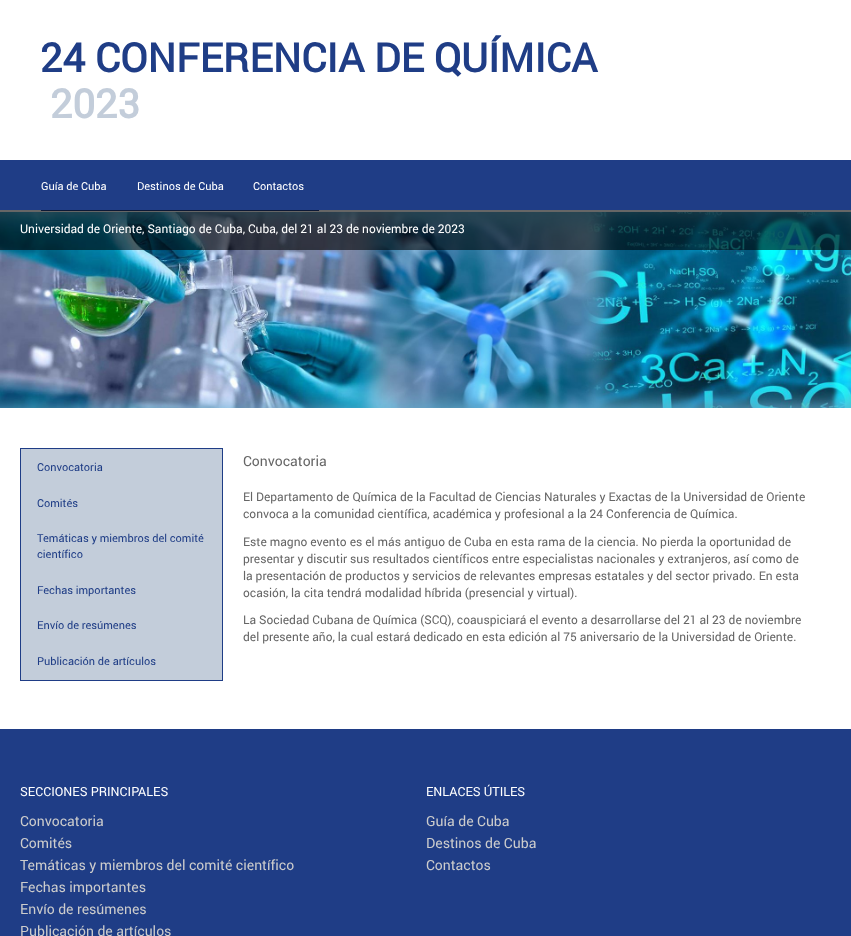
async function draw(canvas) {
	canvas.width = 851;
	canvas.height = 936;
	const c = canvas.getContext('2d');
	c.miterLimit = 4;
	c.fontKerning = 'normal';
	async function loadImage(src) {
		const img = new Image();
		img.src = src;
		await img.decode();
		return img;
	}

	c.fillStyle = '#fff';
	c.fillRect(0, 0, 851, 936);
	c.font = 'bold 40px Roboto';
	c.fillStyle = '#1f3d86';
	c.fillText('24 CONFERENCIA DE QUÍMICA', 40, 72);
	c.fillStyle = '#c3cdda';
	c.fillText('2023', 50, 118);
	c.fillStyle = '#1f3d86';
	c.fillRect(0, 160, 851, 50);
	c.fillRect(41, 210, 278, 1);
	c.font = '11px Roboto';
	c.fillStyle = '#fff';
	for (const [text, x, y] of [
		['Guía de Cuba', 41, 190],
		['Destinos de Cuba', 137, 190],
		['Contactos', 253, 190],
	]) {
		c.fillText(text, x, y);
	}
	c.drawImage(await loadImage('img1.png'), 0, 212, 851, 196);
	c.fillStyle = '#00000099';
	c.fillRect(0, 210, 851, 40);
	c.font = '12px Roboto';
	c.fillStyle = '#fff';
	c.fillText('Universidad de Oriente, Santiago de Cuba, Cuba, del 21 al 23 de noviembre de 2023', 20, 233);
	c.fillStyle = '#c3cdda';
	c.fillRect(21, 449, 201, 194);
	c.strokeStyle = '#1f3d86';
	c.strokeRect(20.5, 448.5, 202, 232);
	c.font = '11px Roboto';
	c.fillStyle = '#1f3d86';
	for (const [text, x, y] of [
		['Convocatoria', 37, 471],
		['Comités', 37, 507],
		['Temáticas y miembros del comité', 37, 542],
		['científico', 37, 558],
		['Fechas importantes', 37, 594],
		['Envío de resúmenes', 37, 629],
	]) {
		c.fillText(text, x, y);
	}
	c.fillStyle = '#c3cdda';
	c.fillRect(21, 643, 201, 37);
	c.fillStyle = '#1f3d86';
	c.fillText('Publicación de artículos', 37, 665);
	c.font = '14px Roboto';
	c.fillStyle = '#666';
	c.fillText('Convocatoria', 243, 466);
	c.font = '12px Roboto';
	for (const [text, x, y] of [
		['El Departamento de Química de la Facultad de Ciencias Naturales y Exactas de la Universidad de Oriente', 243, 501],
		['convoca a la comunidad científica, académica y profesional a la 24 Conferencia de Química.', 243, 518],
		['Este magno evento es el más antiguo de Cuba en esta rama de la ciencia. No pierda la oportunidad de', 243, 546],
		['presentar y discutir sus resultados científicos entre especialistas nacionales y extranjeros, así como de', 243, 563],
		['la presentación de productos y servicios de relevantes empresas estatales y del sector privado. En esta', 243, 580],
		['ocasión, la cita tendrá modalidad híbrida (presencial y virtual).', 243, 597],
		['La Sociedad Cubana de Química (SCQ), coauspiciará el evento a desarrollarse del 21 al 23 de noviembre', 243, 624],
		['del presente año, la cual estará dedicado en esta edición al 75 aniversario de la Universidad de Oriente.', 243, 641],
	]) {
		c.fillText(text, x, y);
	}
	c.fillStyle = '#1f3d86';
	c.fillRect(0, 729, 851, 207);
	c.font = '12.6px Roboto';
	c.fillStyle = '#fff';
	c.fillText('SECCIONES PRINCIPALES', 20, 796);
	c.font = '14px Roboto';
	c.fillStyle = '#ccc';
	for (const [text, x, y] of [
		['Convocatoria', 20, 826],
		['Comités', 20, 848],
		['Temáticas y miembros del comité científico', 20, 870],
		['Fechas importantes', 20, 892],
		['Envío de resúmenes', 20, 914],
		['Publicación de artículos', 20, 936],
	]) {
		c.fillText(text, x, y);
	}
	c.font = '12.6px Roboto';
	c.fillStyle = '#fff';
	c.fillText('ENLACES ÚTILES', 426, 796);
	c.font = '14px Roboto';
	c.fillStyle = '#ccc';
	for (const [text, x, y] of [
		['Guía de Cuba', 426, 826],
		['Destinos de Cuba', 426, 848],
		['Contactos', 426, 870],
	]) {
		c.fillText(text, x, y);
	}
}

draw(document.querySelector('canvas'));
